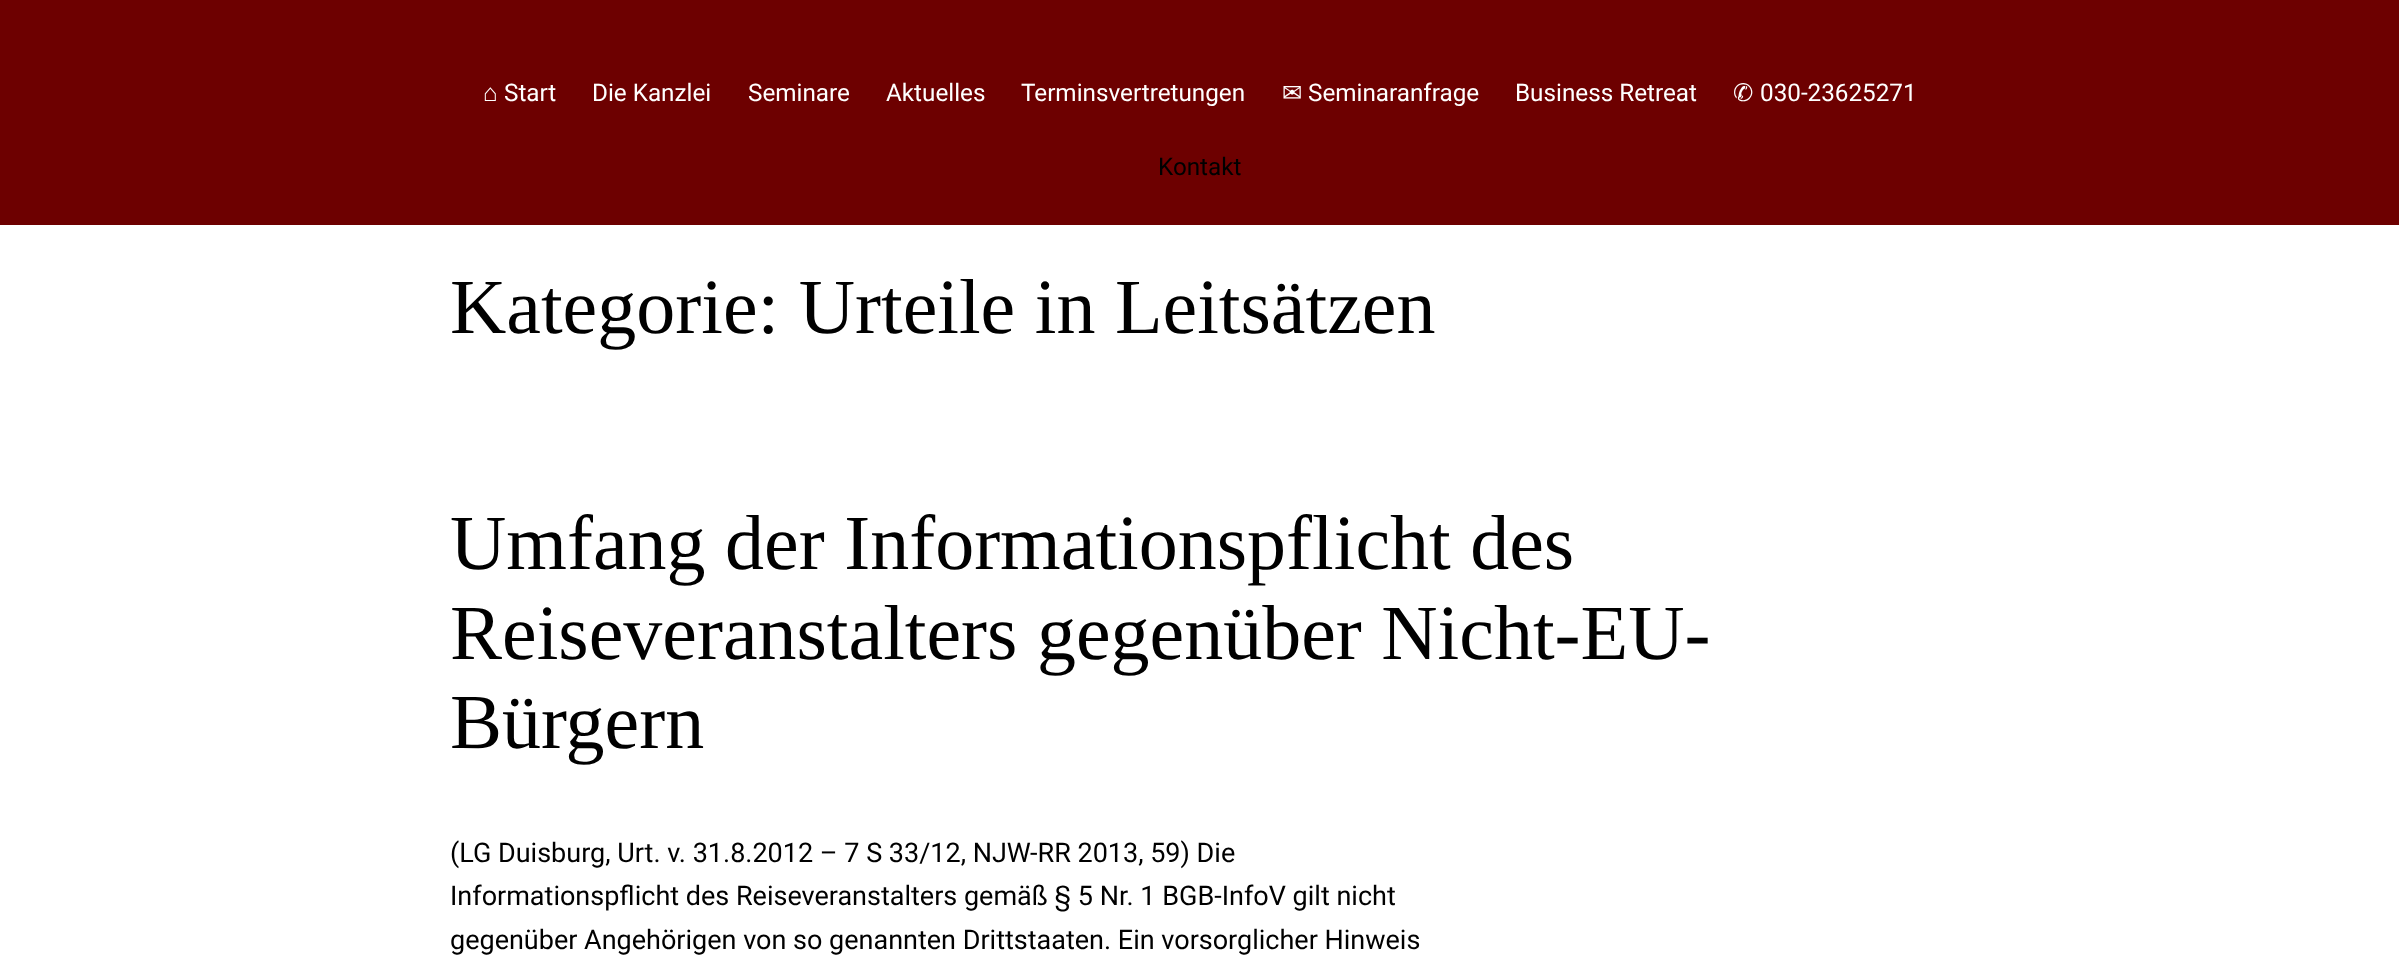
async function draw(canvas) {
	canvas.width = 2399;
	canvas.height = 959;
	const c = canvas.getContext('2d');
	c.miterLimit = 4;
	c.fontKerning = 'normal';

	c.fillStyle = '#fff';
	c.fillRect(0, 0, 2399, 959);
	c.fillStyle = '#6d0000';
	c.fillRect(0, 0, 2399, 225);
	c.font = '24.25px Liberation Sans';
	c.fillStyle = '#fff';
	c.fillText('⌂', 483, 101);
	c.font = '24.25px Roboto';
	for (const [text, x, y] of [
		['Start', 504, 101],
		['Die Kanzlei', 592, 101],
		['Seminare', 748, 101],
		['Aktuelles', 886, 101],
		['Terminsvertretungen', 1021, 101],
	]) {
		c.fillText(text, x, y);
	}
	c.font = '24.25px DejaVu Sans';
	c.fillText('✉', 1282, 101);
	c.font = '24.25px Roboto';
	c.fillText('Seminaranfrage', 1308, 101);
	c.fillText('Business Retreat', 1515, 101);
	c.font = '24.25px DejaVu Sans';
	c.fillText('✆', 1733, 101);
	c.font = '24.25px Roboto';
	c.fillText('030-23625271', 1760, 101);
	c.fillStyle = '#000';
	c.fillText('Kontakt', 1158, 175);
	c.font = '78px Liberation Serif';
	for (const [text, x, y] of [
		['Kategorie: Urteile in Leitsätzen', 450, 333],
		['Umfang der Informationspflicht des', 450, 569],
		['Reiseveranstalters gegenüber Nicht-EU-', 450, 659],
		['Bürgern', 450, 748],
	]) {
		c.fillText(text, x, y);
	}
	c.font = '27px Roboto';
	for (const [text, x, y] of [
		['(LG Duisburg, Urt. v. 31.8.2012 – 7 S 33/12, NJW-RR 2013, 59) Die', 450, 862],
		['Informationspflicht des Reiseveranstalters gemäß § 5 Nr. 1 BGB-InfoV gilt nicht', 450, 905],
		['gegenüber Angehörigen von so genannten Drittstaaten. Ein vorsorglicher Hinweis', 450, 949],
	]) {
		c.fillText(text, x, y);
	}
}

draw(document.querySelector('canvas'));
